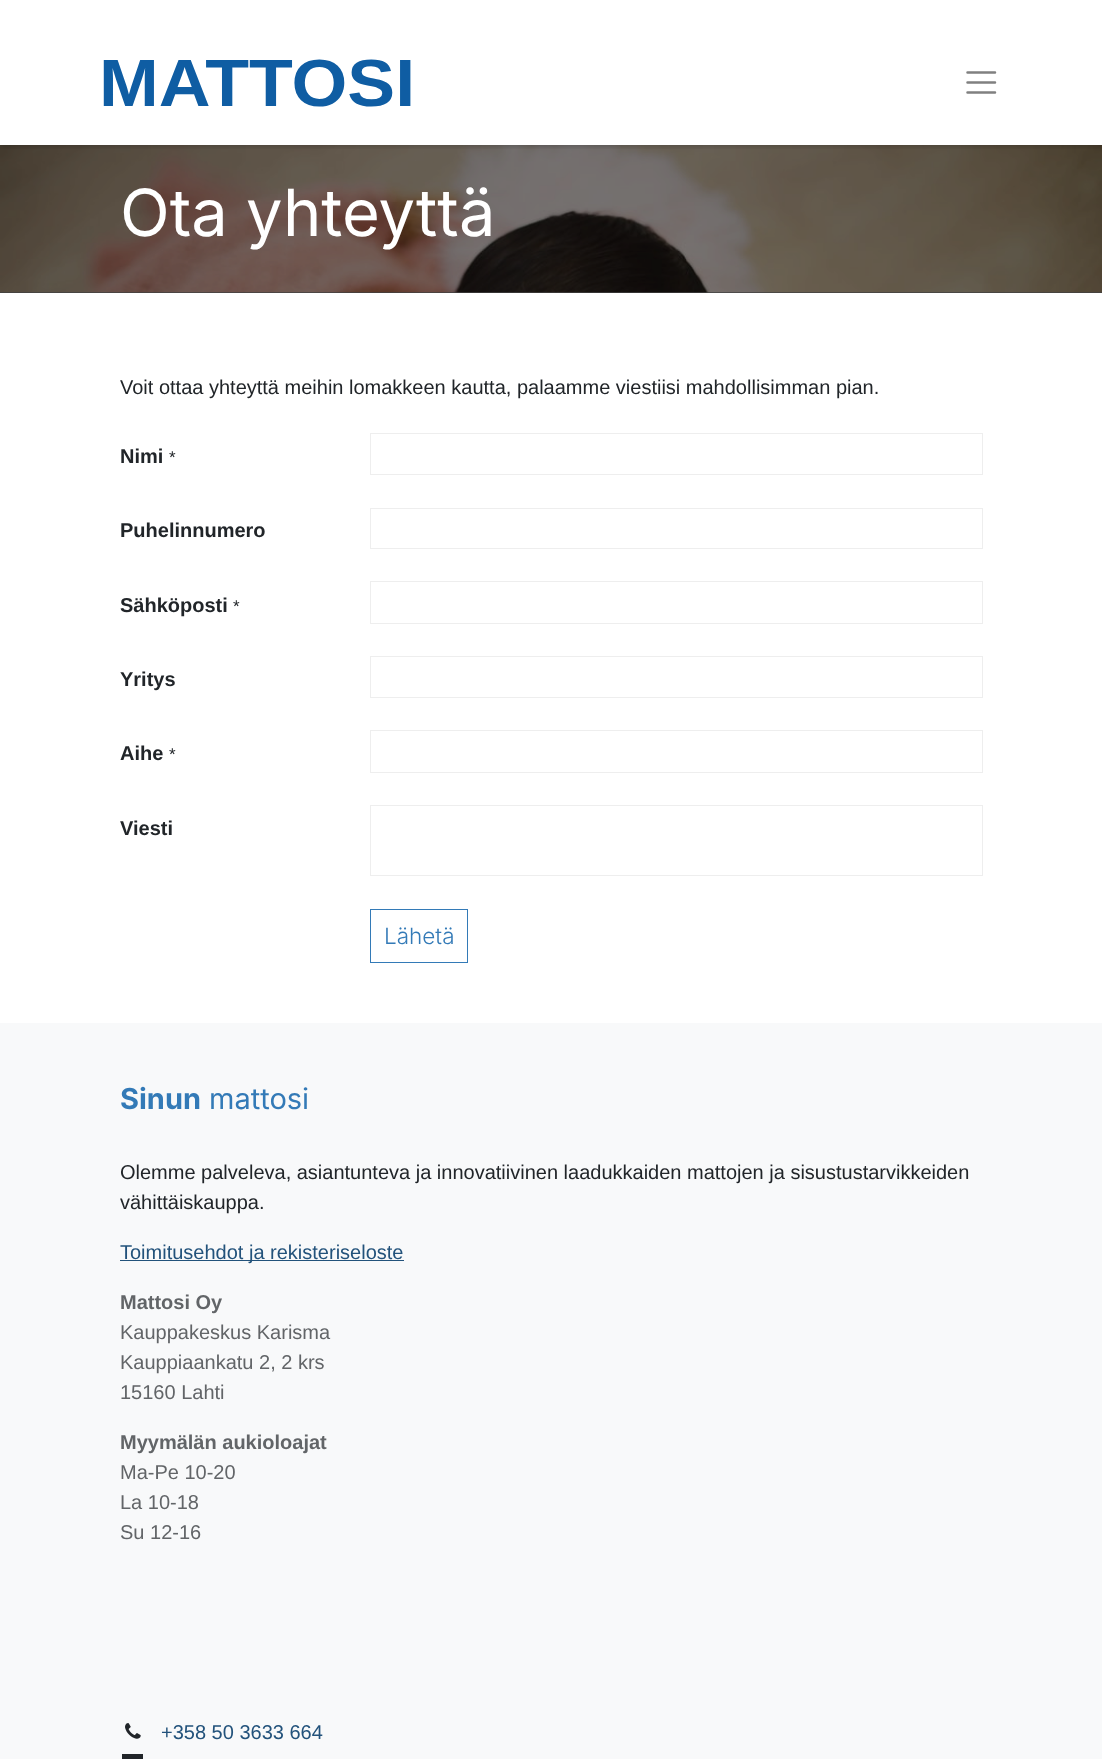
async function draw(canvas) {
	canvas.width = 1102;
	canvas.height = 1759;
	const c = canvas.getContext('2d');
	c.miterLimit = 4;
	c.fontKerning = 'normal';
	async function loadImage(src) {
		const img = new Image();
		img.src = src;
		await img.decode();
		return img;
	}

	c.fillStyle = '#fff';
	c.fillRect(0, 0, 1102, 1759);
	c.fillStyle = '#404040';
	c.fillRect(0, 292, 1102, 1);
	c.drawImage(await loadImage('img2.png'), 0, 145, 1102, 148);
	c.save();
	c.beginPath();
	c.rect(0, 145, 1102, 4);
	c.clip();
	c.fillStyle = '#00000040';
	c.filter = 'blur(3px)';
	c.beginPath();
	c.rect(0, 0, 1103, 145);
	c.fill();
	c.filter = 'none';
	c.restore();
	c.drawImage(await loadImage('img1.png'), 103, 59, 308, 48);
	c.beginPath();
	c.moveTo(967.5, 72.5);
	c.lineTo(995, 72.5);
	c.moveTo(967.5, 82.5);
	c.lineTo(995, 82.5);
	c.moveTo(967.5, 92.5);
	c.lineTo(995, 92.5);
	c.strokeStyle = '#808080';
	c.lineWidth = 2.5;
	c.lineCap = 'round';
	c.stroke();
	c.font = '65px Inter';
	c.fillStyle = '#fff';
	c.fillText('Ota yhteyttä', 120, 236);
	c.font = '20px Liberation Sans';
	c.fillStyle = '#212529';
	c.fillText('Voit ottaa yhteyttä meihin lomakkeen kautta, palaamme viestiisi mahdollisimman pian.', 120, 394);
	c.font = 'bold 20px Liberation Sans';
	c.fillText('Nimi', 120, 463);
	c.font = '17px Liberation Sans';
	c.fillText('*', 169, 463);
	c.strokeStyle = '#eee';
	c.lineWidth = 1;
	c.strokeRect(370.5, 433.5, 612, 41);
	c.font = 'bold 20px Liberation Sans';
	c.fillText('Puhelinnumero', 120, 537);
	c.strokeRect(370.5, 508.5, 612, 40);
	c.fillText('Sähköposti', 120, 612);
	c.font = '17px Liberation Sans';
	c.fillText('*', 233, 612);
	c.strokeRect(370.5, 581.5, 612, 42);
	c.font = 'bold 20px Liberation Sans';
	c.fillText('Yritys', 120, 686);
	c.strokeRect(370.5, 656.5, 612, 41);
	c.fillText('Aihe', 120, 760);
	c.font = '17px Liberation Sans';
	c.fillText('*', 169, 760);
	c.strokeRect(370.5, 730.5, 612, 42);
	c.font = 'bold 20px Liberation Sans';
	c.fillText('Viesti', 120, 835);
	c.strokeRect(370.5, 805.5, 612, 70);
	c.strokeStyle = '#337ab7';
	c.strokeRect(370.5, 909.5, 97, 53);
	c.font = '300 22.5px Inter';
	c.fillStyle = '#337ab7';
	c.fillText('Lähetä', 384, 944);
	c.fillStyle = '#f8f9fa';
	c.fillRect(0, 1023, 1102, 736);
	c.font = 'bold 29px Inter';
	c.fillStyle = '#337ab7';
	c.fillText('Sinun', 120, 1109);
	c.font = '29px Inter';
	c.fillText('mattosi', 209, 1109);
	c.font = '20px Liberation Sans';
	c.fillStyle = '#212529';
	c.fillText('Olemme palveleva, asiantunteva ja innovatiivinen laadukkaiden mattojen ja sisustustarvikkeiden', 120, 1179);
	c.fillText('vähittäiskauppa.', 120, 1209);
	c.fillStyle = '#22527b';
	c.fillRect(120, 1260, 284, 1);
	c.fillText('Toimitusehdot ja rekisteriseloste', 120, 1259);
	c.font = 'bold 20px Liberation Sans';
	c.fillStyle = '#626568';
	c.fillText('Mattosi Oy', 120, 1309);
	c.font = '20px Liberation Sans';
	for (const [text, x, y] of [
		['Kauppakeskus Karisma', 120, 1339],
		['Kauppiaankatu 2, 2 krs', 120, 1369],
		['15160 Lahti', 120, 1399],
	]) {
		c.fillText(text, x, y);
	}
	c.font = 'bold 20px Liberation Sans';
	c.fillText('Myymälän aukioloajat', 120, 1449);
	c.font = '20px Liberation Sans';
	for (const [text, x, y] of [
		['Ma-Pe 10-20', 120, 1479],
		['La 10-18', 120, 1509],
		['Su 12-16', 120, 1539],
	]) {
		c.fillText(text, x, y);
	}
	c.drawImage(await loadImage('img3.png'), 125, 1723, 16, 16);
	c.fillStyle = '#22527b';
	c.fillText('+358 50 3633 664', 161, 1739);
	c.fillStyle = '#212529';
	c.fillRect(122, 1754, 21, 5);
}

draw(document.querySelector('canvas'));
